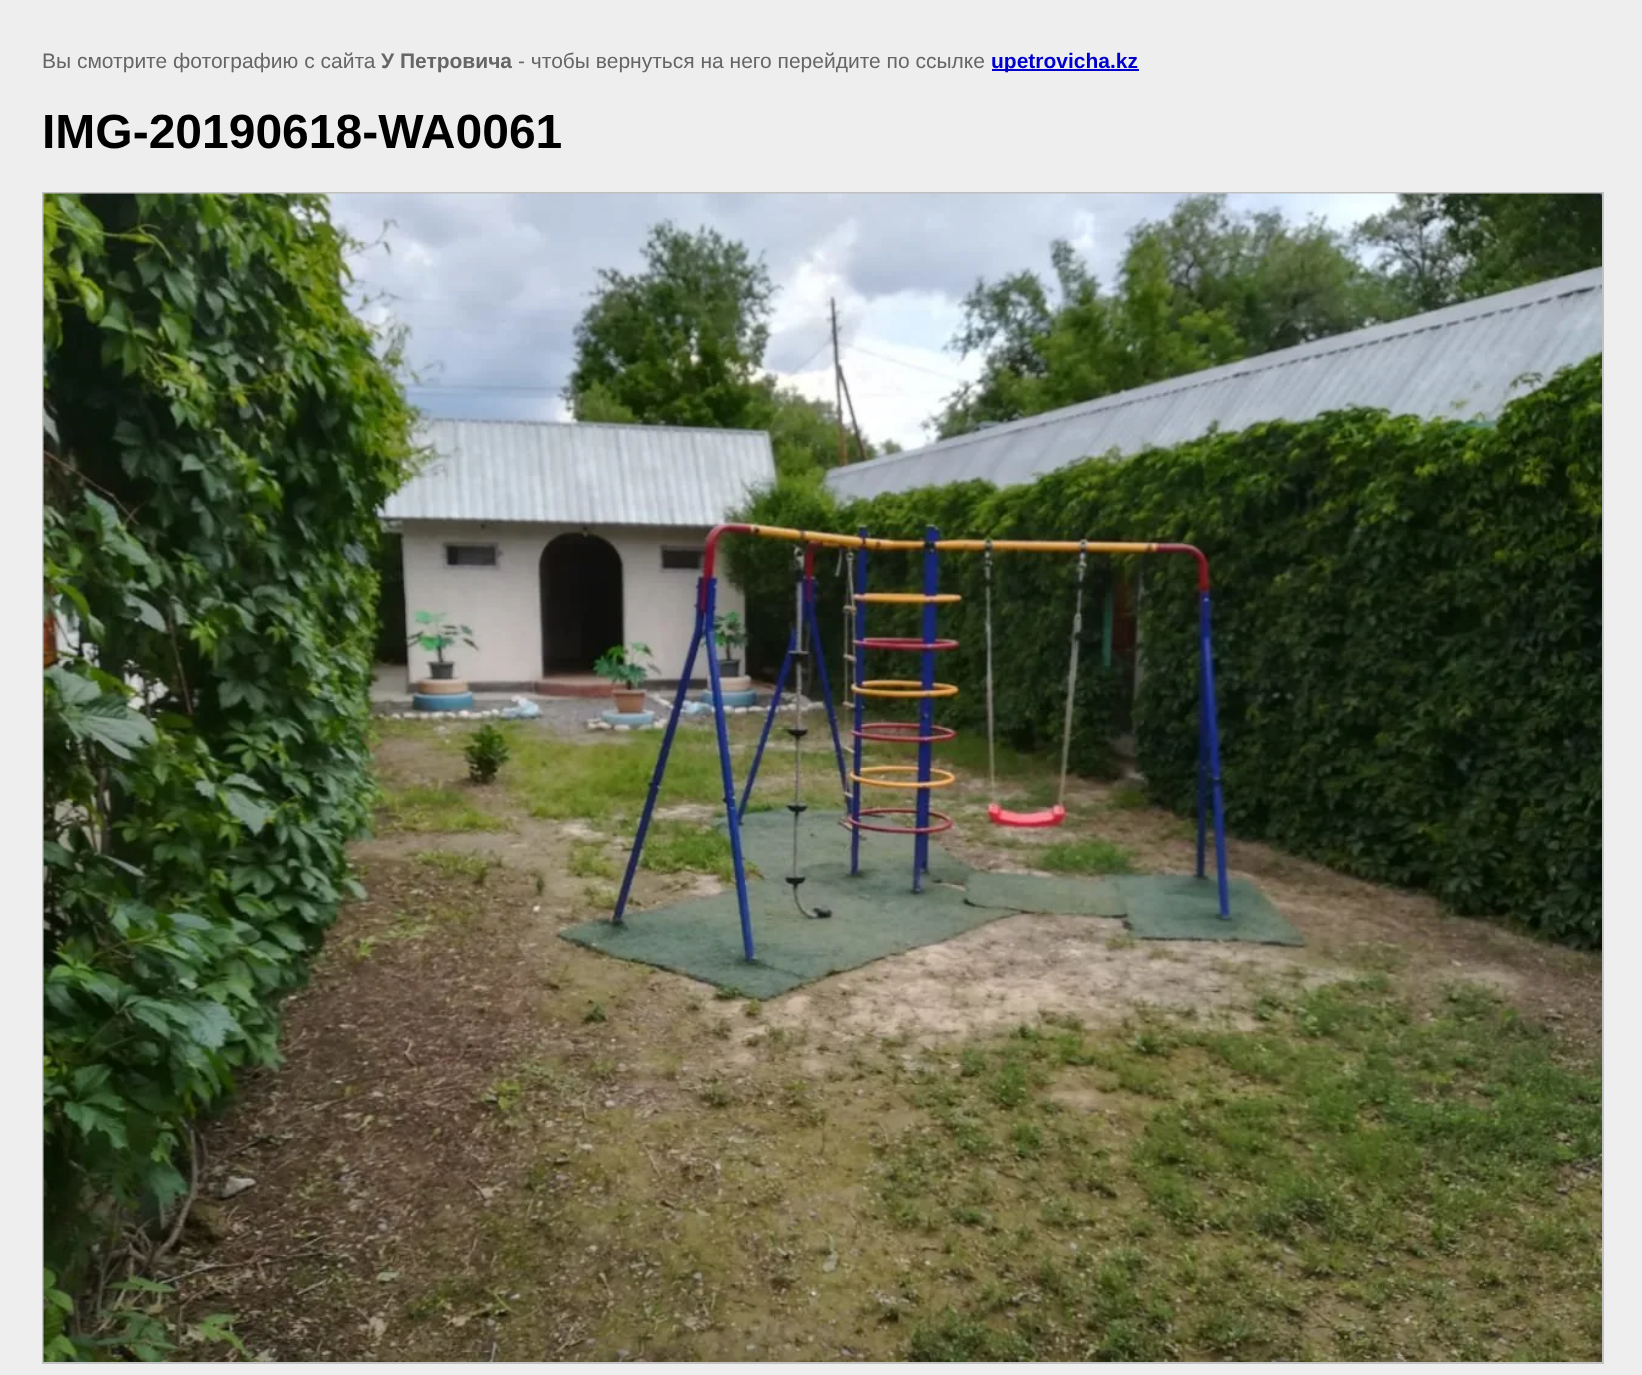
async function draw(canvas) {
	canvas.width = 1642;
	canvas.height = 1375;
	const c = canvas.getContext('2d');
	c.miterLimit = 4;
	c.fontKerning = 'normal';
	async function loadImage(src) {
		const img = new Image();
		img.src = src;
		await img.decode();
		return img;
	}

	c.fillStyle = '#eee';
	c.fillRect(0, 0, 1642, 1375);
	c.font = '21px Liberation Sans';
	c.fillStyle = '#666';
	c.fillText('Вы смотрите фотографию с сайта', 42, 68);
	c.font = 'bold 21px Liberation Sans';
	c.fillText('У Петровича', 381, 68);
	c.font = '21px Liberation Sans';
	c.fillText('- чтобы вернуться на него перейдите по ссылке', 518, 68);
	c.fillStyle = '#00c';
	c.fillRect(992, 69, 147, 2);
	c.font = 'bold 21px Liberation Sans';
	c.fillText('upetrovicha.kz', 991, 68);
	c.font = 'bold 48px Liberation Sans';
	c.fillStyle = '#000';
	c.fillText('IMG-20190618-WA0061', 42, 148);
	c.strokeStyle = '#c0c0c0';
	c.lineWidth = 2;
	c.strokeRect(43, 193, 1560, 1170);
	c.drawImage(await loadImage('img1.png'), 43, 193, 1559, 1169);
}

draw(document.querySelector('canvas'));
